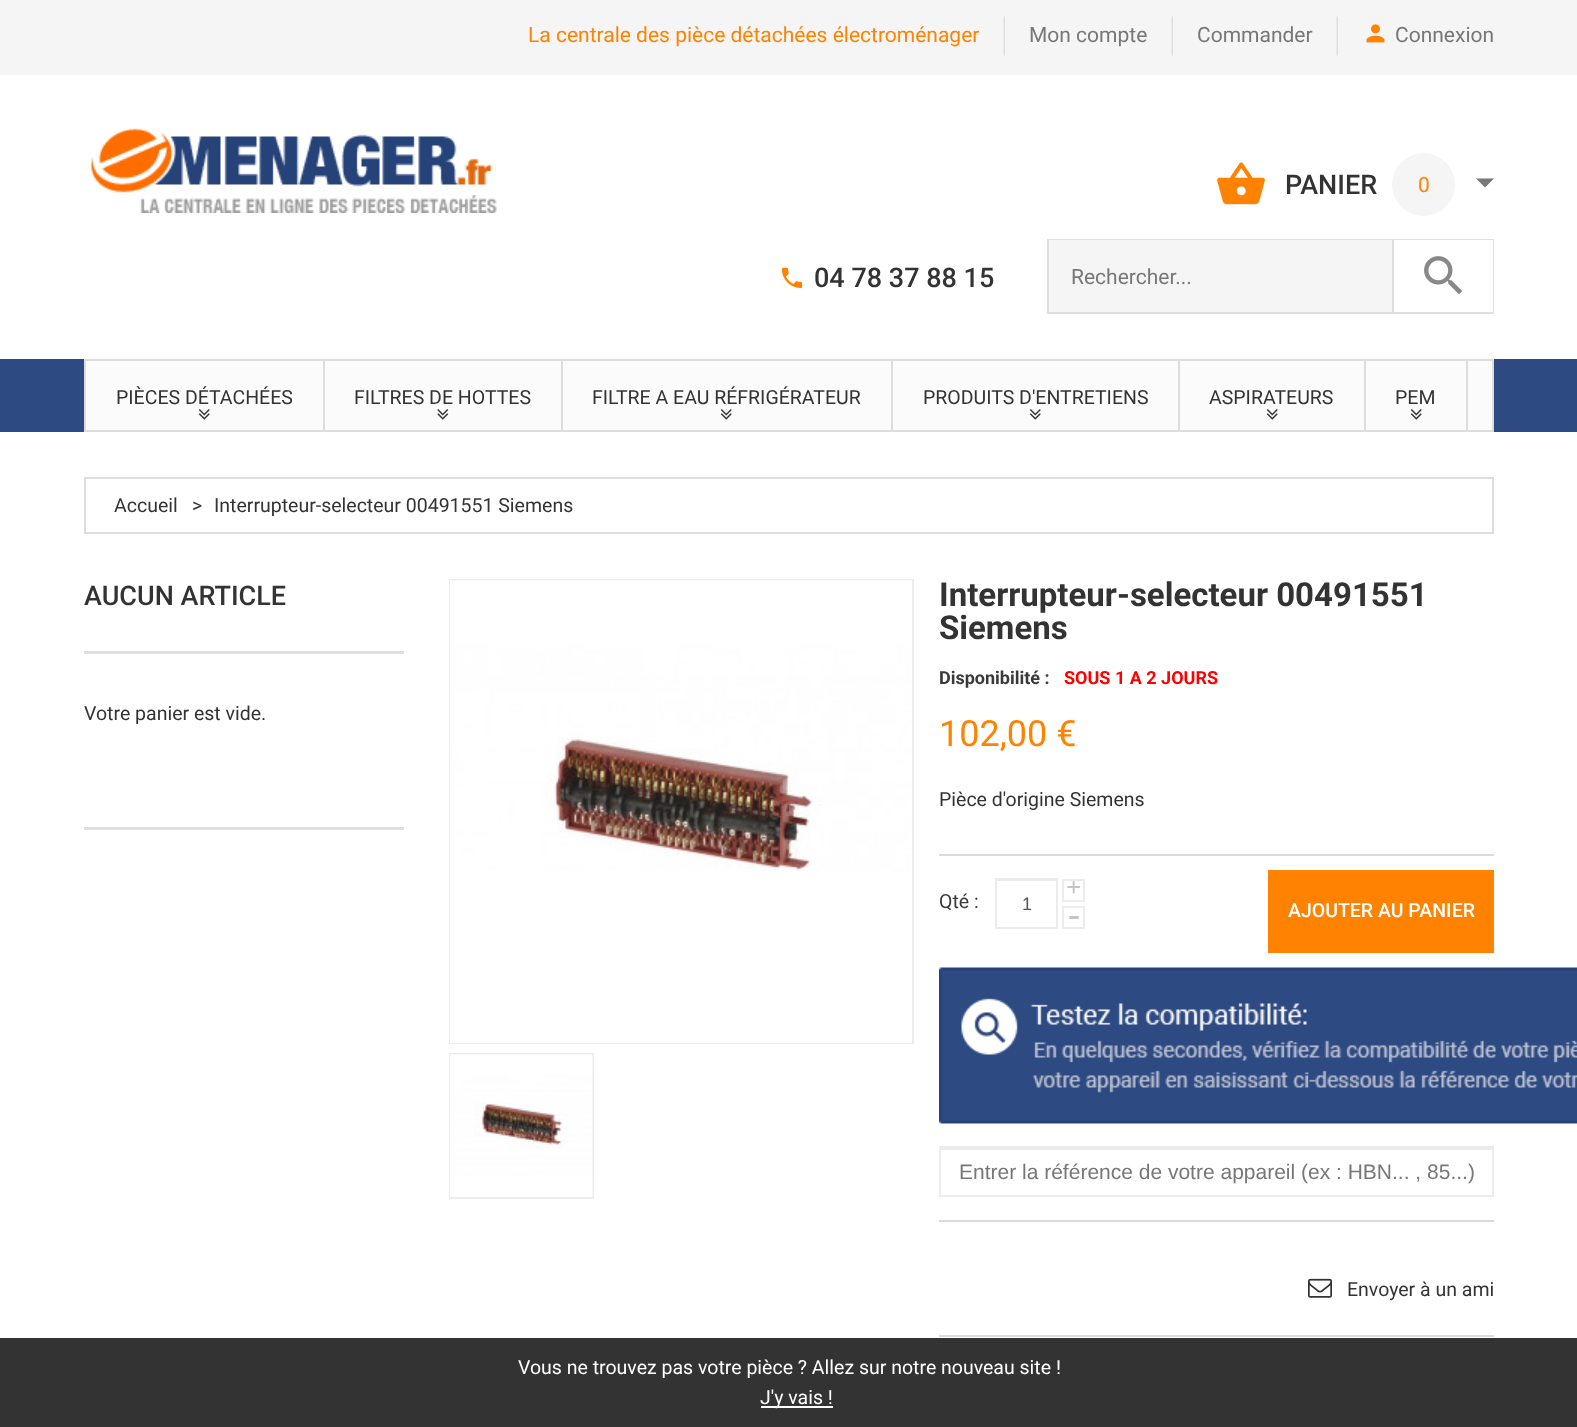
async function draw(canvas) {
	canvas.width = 1577;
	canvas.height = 1427;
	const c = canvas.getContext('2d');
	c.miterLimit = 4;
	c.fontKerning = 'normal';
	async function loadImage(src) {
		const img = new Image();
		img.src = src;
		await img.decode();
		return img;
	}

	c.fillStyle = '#2d4a83';
	c.fillRect(0, 0, 1577, 1427);
	c.fillStyle = '#f5f5f5';
	c.fillRect(0, 0, 1577, 75);
	c.font = '21px Roboto';
	c.fillStyle = '#ff8200';
	c.fillText('La centrale des pièce détachées électroménager', 528, 42);
	c.drawImage(await loadImage('img1.png'), 1003, 16, 2, 40);
	c.fillStyle = '#777';
	c.fillText('Mon compte', 1029, 42);
	c.drawImage(await loadImage('img1.png'), 1171, 16, 2, 40);
	c.fillText('Commander', 1197, 42);
	c.drawImage(await loadImage('img1.png'), 1336, 16, 2, 40);
	c.drawImage(await loadImage('img2.png'), 1366, 24, 19, 19);
	c.fillText('Connexion', 1395, 42);
	c.fillStyle = '#fff';
	c.fillRect(0, 75, 1577, 284);
	c.drawImage(await loadImage('img3.png'), 91, 128, 406, 85);
	c.drawImage(await loadImage('img4.png'), 1217, 162, 48, 43);
	c.font = '500 27px Roboto';
	c.fillStyle = '#333';
	c.fillText('PANIER', 1285, 194);
	c.fillStyle = '#f5f5f5';
	c.beginPath();
	c.arc(1423.5, 184.5, 31.5, 0, 2 * Math.PI);
	c.fill();
	c.font = '21px Roboto';
	c.fillStyle = '#ff8200';
	c.fillText('0', 1418, 192);
	c.fillStyle = '#777';
	c.beginPath();
	c.moveTo(1476, 178.5);
	c.lineTo(1485, 187.5);
	c.lineTo(1494, 178.5);
	c.closePath();
	c.fill();
	c.drawImage(await loadImage('img5.png'), 781, 267, 22, 21);
	c.font = '500 27px Roboto';
	c.fillStyle = '#333';
	c.fillText('04 78 37 88 15', 814, 287);
	c.strokeStyle = '#dfdfdf';
	c.lineWidth = 2;
	c.strokeRect(1048, 240, 445, 73);
	c.fillStyle = '#f5f5f5';
	c.fillRect(1049, 240, 343, 72);
	c.fillStyle = '#dfdfdf';
	c.fillRect(1392, 240, 2, 72);
	c.font = '21px Roboto';
	c.fillStyle = '#777';
	c.fillText('Rechercher...', 1071, 284);
	c.fillStyle = '#fff';
	c.fillRect(1394, 240, 99, 72);
	c.drawImage(await loadImage('img6.png'), 1424, 256, 39, 39);
	c.fillStyle = '#fbfbfb';
	c.beginPath();
	c.rect(85, 360, 1408, 71);
	c.fill();
	c.strokeStyle = '#ddd';
	c.stroke();
	c.fillStyle = '#ddd';
	c.fillRect(323, 360, 2, 71);
	c.font = '19.5px Roboto';
	c.fillStyle = '#333';
	c.fillText('PIÈCES DÉTACHÉES', 116, 404);
	c.drawImage(await loadImage('img7.png'), 198, 409, 12, 11);
	c.fillStyle = '#ddd';
	c.fillRect(561, 360, 2, 71);
	c.fillStyle = '#333';
	c.fillText('FILTRES DE HOTTES', 354, 404);
	c.drawImage(await loadImage('img8.png'), 437, 409, 12, 11);
	c.fillStyle = '#ddd';
	c.fillRect(891, 360, 2, 71);
	c.fillStyle = '#333';
	c.fillText('FILTRE A EAU RÉFRIGÉRATEUR', 592, 404);
	c.drawImage(await loadImage('img7.png'), 720, 409, 12, 11);
	c.fillStyle = '#ddd';
	c.fillRect(1178, 360, 2, 71);
	c.fillStyle = '#333';
	c.fillText('PRODUITS D\'ENTRETIENS', 923, 404);
	c.drawImage(await loadImage('img7.png'), 1029, 409, 12, 11);
	c.fillStyle = '#ddd';
	c.fillRect(1364, 360, 2, 71);
	c.fillStyle = '#333';
	c.fillText('ASPIRATEURS', 1209, 404);
	c.drawImage(await loadImage('img7.png'), 1266, 409, 12, 11);
	c.fillStyle = '#ddd';
	c.fillRect(1466, 360, 2, 71);
	c.fillStyle = '#333';
	c.fillText('PEM', 1395, 404);
	c.drawImage(await loadImage('img7.png'), 1410, 409, 12, 11);
	c.fillStyle = '#fff';
	c.fillRect(0, 432, 1577, 906);
	c.strokeRect(85, 478, 1408, 55);
	c.fillStyle = '#333';
	for (const [text, x, y] of [
		['Accueil', 114, 512],
		['>', 192, 512],
		['Interrupteur-selecteur 00491551 Siemens', 214, 512],
	]) {
		c.fillText(text, x, y);
	}
	c.fillStyle = '#dfdfdf';
	c.fillRect(84, 651, 320, 3);
	c.font = '500 27px Roboto';
	c.fillStyle = '#333';
	c.fillText('AUCUN ARTICLE', 84, 605);
	c.font = '19.5px Roboto';
	c.fillText('Votre panier est vide.', 84, 720);
	c.fillStyle = '#dfdfdf';
	c.fillRect(84, 827, 320, 3);
	c.strokeStyle = '#ececec';
	c.strokeRect(450, 580, 463, 463);
	c.fillStyle = '#fff';
	c.fillRect(450, 872, 462, 171);
	c.drawImage(await loadImage('img9.png'), 450, 580, 462, 292);
	c.strokeRect(450, 1054, 143, 144);
	c.drawImage(await loadImage('img10.png'), 450, 1054, 143, 143);
	c.font = 'bold 33px Roboto';
	c.fillStyle = '#333';
	c.fillText('Interrupteur-selecteur 00491551', 939, 606);
	c.fillText('Siemens', 939, 639);
	c.font = 'bold 18px Roboto';
	c.fillStyle = '#3a3a3a';
	c.fillText('Disponibilité :', 939, 684);
	c.fillStyle = '#f00';
	c.fillText('SOUS 1 A 2 JOURS', 1064, 684);
	c.font = '36px Roboto';
	c.fillStyle = '#ff8200';
	c.fillText('102,00 €', 939, 746);
	c.font = '19.5px Roboto';
	c.fillStyle = '#333';
	c.fillText('Pièce d\'origine Siemens', 939, 806);
	c.fillStyle = '#dbdbdb';
	c.fillRect(939, 854, 555, 2);
	c.fillStyle = '#3a3a3a';
	c.fillText('Qté :', 939, 908);
	c.fillStyle = '#ececec';
	c.fillRect(996, 880, 60, 1);
	c.strokeRect(996, 879, 61, 49);
	c.font = '18px Liberation Sans';
	c.fillStyle = '#555';
	c.fillText('1', 1022, 910);
	c.strokeRect(1063, 880, 21, 21);
	c.save();
	c.beginPath();
	c.rect(1064, 881, 19, 19);
	c.clip();
	c.font = 'bold 27px Liberation Serif';
	c.fillStyle = '#c5c5c5';
	c.fillText('+', 1066, 896);
	c.restore();
	c.strokeRect(1063, 907, 21, 21);
	c.font = 'bold 36px Liberation Serif';
	c.fillStyle = '#c5c5c5';
	c.fillText('-', 1068, 926);
	c.fillStyle = '#ff8200';
	c.fillRect(1268, 870, 226, 83);
	c.font = '500 19.5px Roboto';
	c.fillStyle = '#fff';
	c.fillText('AJOUTER AU PANIER', 1288, 917);
	c.drawImage(await loadImage('img11.png'), 939, 967, 638, 157);
	c.fillStyle = '#dbdbdb';
	c.fillRect(939, 1220, 555, 2);
	c.fillStyle = '#ececec';
	c.fillRect(941, 1148, 552, 2);
	c.strokeRect(940, 1147, 553, 49);
	c.font = '21px Liberation Sans';
	c.fillStyle = '#777';
	c.fillText('Entrer la référence de votre appareil (ex : HBN... , 85...)', 959, 1179);
	c.fillStyle = '#dbdbdb';
	c.fillRect(939, 1335, 555, 2);
	c.drawImage(await loadImage('img12.png'), 1308, 1278, 24, 20);
	c.font = '19.5px Roboto';
	c.fillStyle = '#333';
	c.fillText('Envoyer à un ami', 1347, 1296);
	c.fillRect(0, 1338, 1577, 89);
	c.fillStyle = '#fff';
	c.fillText('Vous ne trouvez pas votre pièce ? Allez sur notre nouveau site !', 518, 1374);
	c.fillRect(761, 1406, 72, 2);
	c.fillText('J\'y vais !', 760, 1404);
}

draw(document.querySelector('canvas'));
